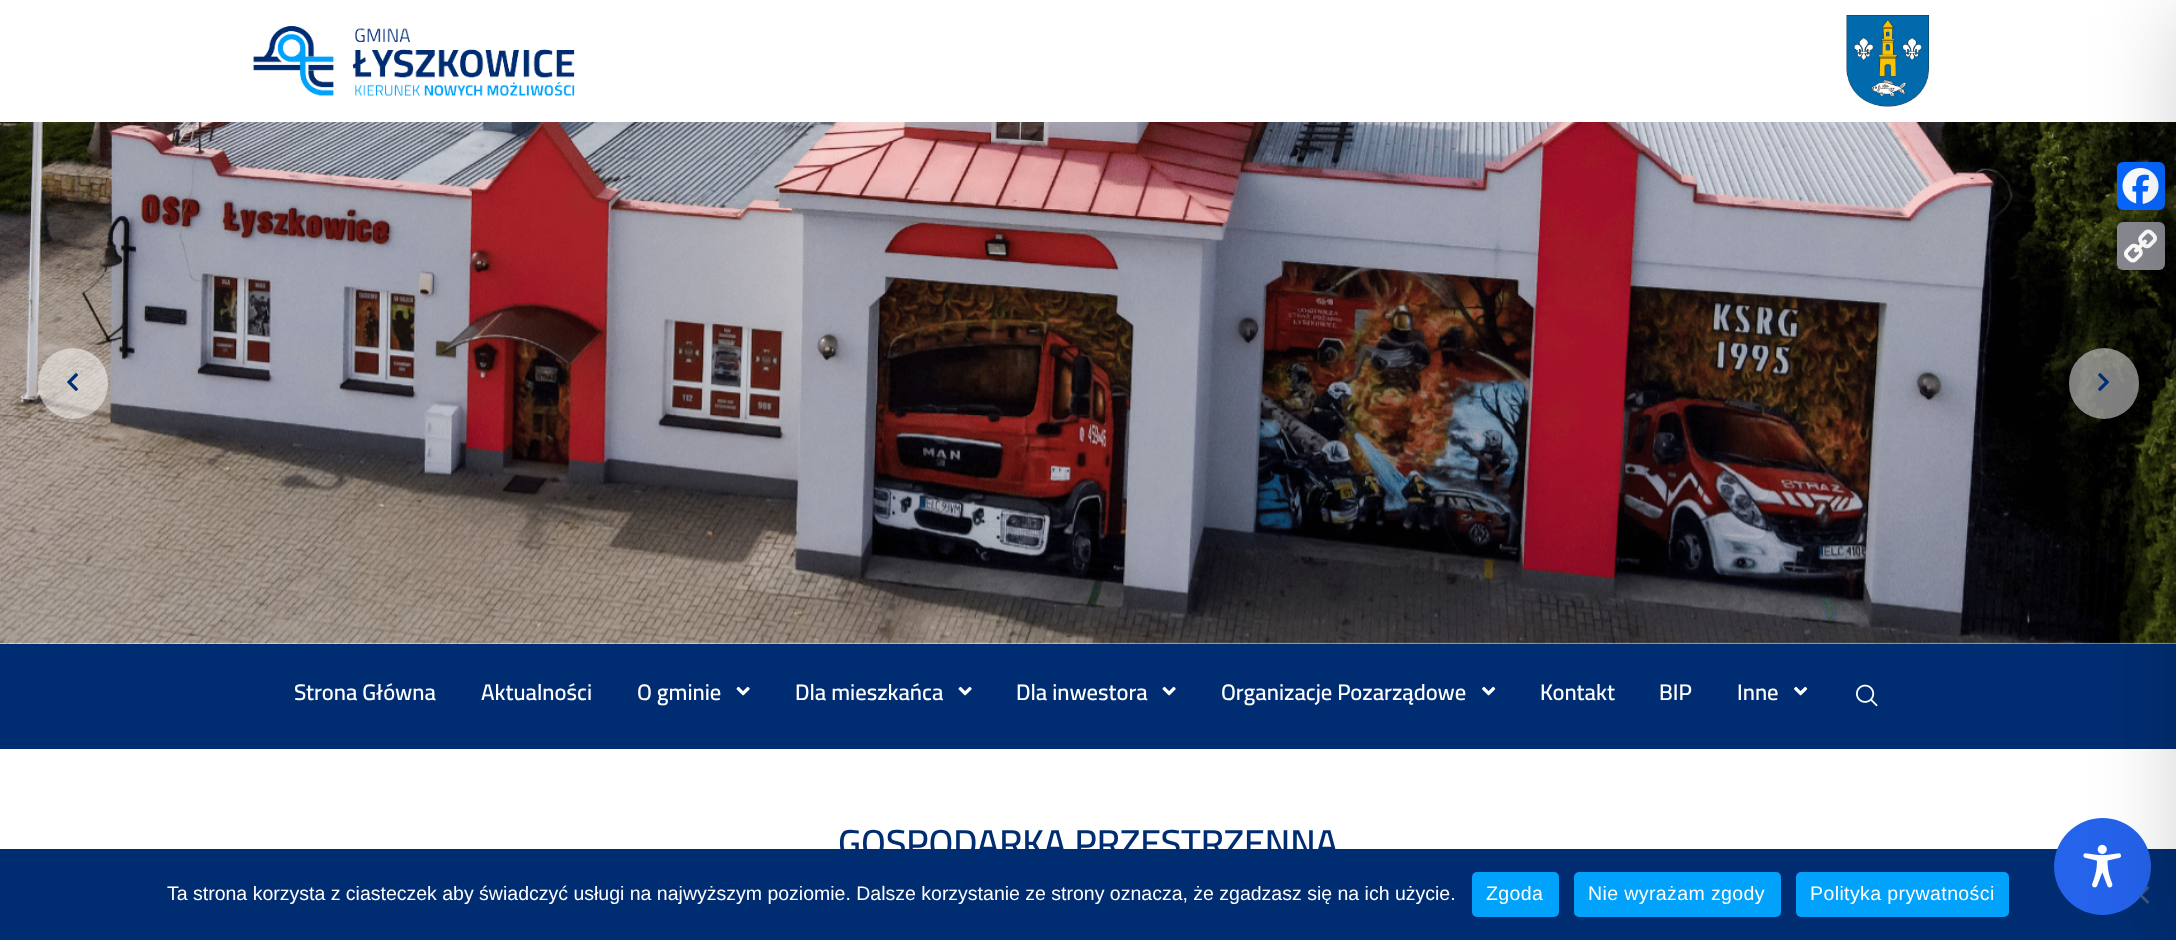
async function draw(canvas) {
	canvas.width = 2176;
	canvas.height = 940;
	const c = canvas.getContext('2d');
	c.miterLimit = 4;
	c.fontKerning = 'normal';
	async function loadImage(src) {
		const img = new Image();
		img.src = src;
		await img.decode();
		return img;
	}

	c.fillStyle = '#fff';
	c.fillRect(0, 0, 2176, 940);
	c.drawImage(await loadImage('img5.png'), 0, 122, 2176, 522);
	c.fillStyle = '#0866ff';
	c.beginPath();
	c.roundRect(2117, 162, 48, 48, 6);
	c.fill();
	c.drawImage(await loadImage('img1.png'), 2122, 168, 37, 36);
	c.fillStyle = '#888990';
	c.beginPath();
	c.roundRect(2117, 222, 48, 48, 6);
	c.fill();
	c.drawImage(await loadImage('img2.png'), 2124, 229, 33, 34);
	c.fillStyle = '#ffffff80';
	c.beginPath();
	c.roundRect(2069, 348, 70, 71, 35);
	c.fill();
	c.drawImage(await loadImage('img7.png'), 2098, 373, 11, 18);
	c.fillStyle = '#002d72';
	c.fillRect(0, 644, 2176, 105);
	c.fillRect(0, 849, 2176, 91);
	c.fillStyle = '#405779';
	c.beginPath();
	c.moveTo(2147.5, 886);
	c.lineTo(2149.5, 888);
	c.lineTo(2133.5, 904);
	c.lineTo(2131.5, 902);
	c.closePath();
	c.fill();
	c.beginPath();
	c.moveTo(2131.5, 888);
	c.lineTo(2133.5, 886);
	c.lineTo(2149.5, 902);
	c.lineTo(2147.5, 904);
	c.closePath();
	c.fill();
	c.fillStyle = '#2563eb';
	c.beginPath();
	c.arc(2102.5, 866.5, 48.5, 0, 2 * Math.PI);
	c.fill();
	c.drawImage(await loadImage('img11.png'), 2083, 844, 39, 44);
	c.fillStyle = '#00000033';
	c.filter = 'blur(45px)';
	c.beginPath();
	c.rect(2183, 15, 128, 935);
	c.fill();
	c.filter = 'none';
	c.drawImage(await loadImage('img3.png'), 253, 25, 322, 72);
	c.drawImage(await loadImage('img4.png'), 1846, 15, 83, 92);
	c.fillStyle = '#ffffff80';
	c.beginPath();
	c.roundRect(38, 348, 70, 71, 35);
	c.fill();
	c.drawImage(await loadImage('img6.png'), 67, 373, 11, 18);
	c.font = '600 22.5px Cairo';
	c.fillStyle = '#fff';
	for (const [text, x, y] of [
		['Strona Główna', 294, 700],
		['Aktualności', 481, 700],
		['O gminie', 637, 700],
	]) {
		c.fillText(text, x, y);
	}
	c.drawImage(await loadImage('img8.png'), 736, 686, 14, 10);
	c.fillText('Dla mieszkańca', 795, 700);
	c.drawImage(await loadImage('img8.png'), 958, 686, 14, 10);
	c.fillText('Dla inwestora', 1016, 700);
	c.drawImage(await loadImage('img8.png'), 1162, 686, 14, 10);
	c.fillText('Organizacje Pozarządowe', 1221, 700);
	c.drawImage(await loadImage('img9.png'), 1482, 686, 14, 10);
	for (const [text, x, y] of [
		['Kontakt', 1540, 700],
		['BIP', 1659, 700],
		['Inne', 1737, 700],
	]) {
		c.fillText(text, x, y);
	}
	c.drawImage(await loadImage('img9.png'), 1794, 686, 14, 10);
	c.drawImage(await loadImage('img10.png'), 1856, 684, 22, 23);
	c.font = '600 37.5px Cairo';
	c.fillStyle = '#002d72';
	c.fillText('GOSPODARKA PRZESTRZENNA', 838, 856);
	c.font = '19.5px Liberation Sans';
	c.fillStyle = '#fff';
	c.fillText('Ta strona korzysta z ciasteczek aby świadczyć usługi na najwyższym poziomie. Dalsze korzystanie ze strony oznacza, że zgadzasz się na ich użycie.', 167, 900);
	c.fillStyle = '#00a2fc';
	c.beginPath();
	c.roundRect(1472, 872, 87, 45, 5);
	c.fill();
	c.letterSpacing = '0.4px';
	c.fillStyle = '#fff';
	c.fillText('Zgoda', 1486, 900);
	c.fillStyle = '#00a2fc';
	c.beginPath();
	c.roundRect(1574, 872, 207, 45, 5);
	c.fill();
	c.fillStyle = '#fff';
	c.fillText('Nie wyrażam zgody', 1588, 900);
	c.fillStyle = '#00a2fc';
	c.beginPath();
	c.roundRect(1796, 872, 213, 45, 5);
	c.fill();
	c.fillStyle = '#fff';
	c.fillText('Polityka prywatności', 1810, 900);
}

draw(document.querySelector('canvas'));
